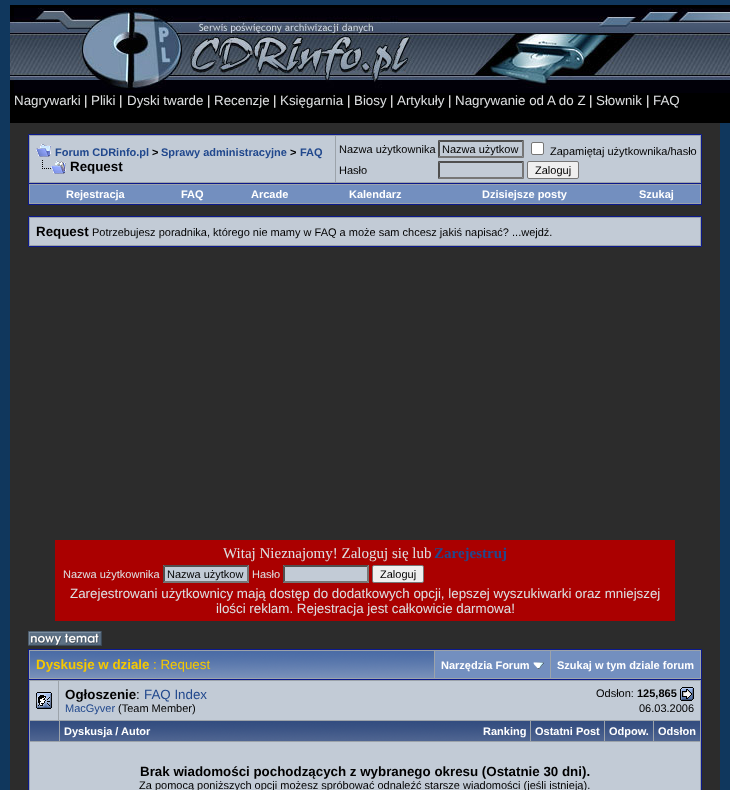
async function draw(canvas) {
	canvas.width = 730;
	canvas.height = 790;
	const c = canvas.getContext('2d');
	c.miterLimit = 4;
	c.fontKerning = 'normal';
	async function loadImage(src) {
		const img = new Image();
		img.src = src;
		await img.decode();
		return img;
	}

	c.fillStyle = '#10375d';
	c.fillRect(0, 0, 730, 790);
	c.fillStyle = '#000';
	c.fillRect(10, 5, 720, 118);
	c.drawImage(await loadImage('img1.png'), 10, 16, 4, 65);
	c.drawImage(await loadImage('img2.png'), 14, 8, 716, 85);
	c.font = '13.35px Liberation Sans';
	c.fillStyle = '#dee0e2';
	c.fillText('Nagrywarki', 14, 105);
	c.fillStyle = '#fff';
	c.fillText('|', 84, 105);
	c.fillStyle = '#dee0e2';
	c.fillText('Pliki', 91, 105);
	c.fillStyle = '#fff';
	c.fillText('|', 119, 105);
	c.fillStyle = '#dee0e2';
	c.fillText('Dyski twarde', 127, 105);
	c.fillStyle = '#fff';
	c.fillText('|', 207, 105);
	c.fillStyle = '#dee0e2';
	c.fillText('Recenzje', 214, 105);
	c.fillStyle = '#fff';
	c.fillText('|', 273, 105);
	c.fillStyle = '#dee0e2';
	c.fillText('Księgarnia', 280, 105);
	c.fillStyle = '#fff';
	c.fillText('|', 347, 105);
	c.fillStyle = '#dee0e2';
	c.fillText('Biosy', 354, 105);
	c.fillStyle = '#fff';
	c.fillText('|', 390, 105);
	c.fillStyle = '#dee0e2';
	c.fillText('Artykuły', 397, 105);
	c.fillStyle = '#fff';
	c.fillText('|', 448, 105);
	c.fillStyle = '#dee0e2';
	c.fillText('Nagrywanie od A do Z', 455, 105);
	c.fillStyle = '#fff';
	c.fillText('|', 589, 105);
	c.fillStyle = '#dee0e2';
	c.fillText('Słownik', 596, 105);
	c.fillStyle = '#fff';
	c.fillText('|', 646, 105);
	c.fillStyle = '#dee0e2';
	c.fillText('FAQ', 653, 105);
	c.fillStyle = '#2c2c2c';
	c.fillRect(10, 123, 710, 667);
	c.fillStyle = '#9ca3aa';
	c.beginPath();
	c.rect(28.5, 134.5, 673, 49);
	c.fill();
	c.strokeStyle = '#0b198c';
	c.stroke();
	c.fillStyle = '#c2cbd6';
	c.fillRect(30, 136, 305, 46);
	c.drawImage(await loadImage('img3.png'), 36, 144, 15, 13);
	c.font = 'bold 11px Liberation Sans';
	c.fillStyle = '#21488d';
	c.fillText('Forum CDRinfo.pl', 55, 156);
	c.fillStyle = '#000';
	c.fillText('>', 152, 156);
	c.fillStyle = '#21488d';
	c.fillText('Sprawy administracyjne', 161, 156);
	c.fillStyle = '#000';
	c.fillText('>', 290, 156);
	c.fillStyle = '#21488d';
	c.fillText('FAQ', 300, 156);
	c.drawImage(await loadImage('img4.png'), 42, 160, 24, 14);
	c.font = 'bold 13.35px Liberation Sans';
	c.fillStyle = '#000';
	c.fillText('Request', 70, 171);
	c.fillStyle = '#c2cbd6';
	c.fillRect(336, 136, 364, 46);
	c.font = '11px Liberation Sans';
	c.fillStyle = '#000';
	c.fillText('Nazwa użytkownika', 339, 153);
	c.fillStyle = '#4f4f4f';
	c.beginPath();
	c.moveTo(438, 140);
	c.lineTo(524, 140);
	c.lineTo(522, 142);
	c.lineTo(440, 142);
	c.closePath();
	c.fill();
	c.fillStyle = '#767676';
	c.beginPath();
	c.moveTo(524, 140);
	c.lineTo(524, 158);
	c.lineTo(522, 156);
	c.lineTo(522, 142);
	c.closePath();
	c.fill();
	c.beginPath();
	c.moveTo(524, 158);
	c.lineTo(438, 158);
	c.lineTo(440, 156);
	c.lineTo(522, 156);
	c.closePath();
	c.fill();
	c.fillStyle = '#4f4f4f';
	c.beginPath();
	c.moveTo(438, 158);
	c.lineTo(438, 140);
	c.lineTo(440, 142);
	c.lineTo(440, 156);
	c.closePath();
	c.fill();
	c.fillStyle = '#000';
	c.fillText('Nazwa użytkow', 442, 153);
	c.fillStyle = '#fff';
	c.beginPath();
	c.roundRect(531.5, 142.5, 12, 12, 1.5);
	c.fill();
	c.strokeStyle = '#767676';
	c.stroke();
	c.fillStyle = '#000';
	c.fillText('Zapamiętaj użytkownika/hasło', 550, 155);
	c.fillText('Hasło', 339, 174);
	c.fillStyle = '#4f4f4f';
	c.beginPath();
	c.moveTo(438, 161);
	c.lineTo(524, 161);
	c.lineTo(522, 163);
	c.lineTo(440, 163);
	c.closePath();
	c.fill();
	c.fillStyle = '#767676';
	c.beginPath();
	c.moveTo(524, 161);
	c.lineTo(524, 179);
	c.lineTo(522, 177);
	c.lineTo(522, 163);
	c.closePath();
	c.fill();
	c.beginPath();
	c.moveTo(524, 179);
	c.lineTo(438, 179);
	c.lineTo(440, 177);
	c.lineTo(522, 177);
	c.closePath();
	c.fill();
	c.fillStyle = '#4f4f4f';
	c.beginPath();
	c.moveTo(438, 179);
	c.lineTo(438, 161);
	c.lineTo(440, 163);
	c.lineTo(440, 177);
	c.closePath();
	c.fill();
	c.fillStyle = '#efefef';
	c.beginPath();
	c.roundRect(527.5, 161.5, 51, 17, 1.5);
	c.fill();
	c.stroke();
	c.fillStyle = '#000';
	c.fillText('Zaloguj', 535, 174);
	for (const [x, y, w, h, color] of [
		[29, 184, 672, 20, '#9ca3aa'],
		[701, 184, 1, 21, '#0b198c'],
		[28, 204, 674, 1, '#0b198c'],
		[28, 184, 1, 21, '#0b198c'],
		[30, 185, 670, 18, '#738fbf'],
	]) {
		c.fillStyle = color;
		c.fillRect(x, y, w, h);
	}
	c.font = 'bold 11px Liberation Sans';
	c.fillStyle = '#fff';
	for (const [text, x, y] of [
		['Rejestracja', 66, 198],
		['FAQ', 181, 198],
		['Arcade', 251, 198],
		['Kalendarz', 349, 198],
		['Dzisiejsze posty', 482, 198],
		['Szukaj', 639, 198],
	]) {
		c.fillText(text, x, y);
	}
	c.fillStyle = '#9ca3aa';
	c.beginPath();
	c.rect(28.5, 216.5, 673, 30);
	c.fill();
	c.strokeStyle = '#0b198c';
	c.stroke();
	c.fillStyle = '#c2cbd6';
	c.fillRect(30, 218, 670, 27);
	c.font = 'bold 13.35px Liberation Sans';
	c.fillStyle = '#000';
	c.fillText('Request', 36, 236);
	c.font = '11px Liberation Sans';
	c.fillText('Potrzebujesz poradnika, którego nie mamy w FAQ a może sam chcesz jakiś napisać? ...wejdź.', 92, 236);
	c.fillStyle = '#a00';
	c.fillRect(55, 540, 620, 81);
	c.font = '15px Liberation Serif';
	c.fillStyle = '#dee0e2';
	c.fillText('Witaj Nieznajomy! Zaloguj się lub', 223, 558);
	c.font = 'bold 15px Liberation Serif';
	c.fillStyle = '#21488d';
	c.fillText('Zarejestruj', 434, 558);
	c.font = '11px Liberation Sans';
	c.fillStyle = '#dee0e2';
	c.fillText('Nazwa użytkownika', 63, 578);
	c.fillStyle = '#c2cbd6';
	c.fillRect(163, 565, 86, 18);
	c.fillStyle = '#4f4f4f';
	c.beginPath();
	c.moveTo(163, 565);
	c.lineTo(249, 565);
	c.lineTo(247, 567);
	c.lineTo(165, 567);
	c.closePath();
	c.fill();
	c.fillStyle = '#767676';
	c.beginPath();
	c.moveTo(249, 565);
	c.lineTo(249, 583);
	c.lineTo(247, 581);
	c.lineTo(247, 567);
	c.closePath();
	c.fill();
	c.beginPath();
	c.moveTo(249, 583);
	c.lineTo(163, 583);
	c.lineTo(165, 581);
	c.lineTo(247, 581);
	c.closePath();
	c.fill();
	c.fillStyle = '#4f4f4f';
	c.beginPath();
	c.moveTo(163, 583);
	c.lineTo(163, 565);
	c.lineTo(165, 567);
	c.lineTo(165, 581);
	c.closePath();
	c.fill();
	c.fillStyle = '#000';
	c.fillText('Nazwa użytkow', 167, 578);
	c.fillStyle = '#dee0e2';
	c.fillText('Hasło', 252, 578);
	c.fillStyle = '#c2cbd6';
	c.fillRect(283, 565, 86, 18);
	c.fillStyle = '#4f4f4f';
	c.beginPath();
	c.moveTo(283, 565);
	c.lineTo(369, 565);
	c.lineTo(367, 567);
	c.lineTo(285, 567);
	c.closePath();
	c.fill();
	c.fillStyle = '#767676';
	c.beginPath();
	c.moveTo(369, 565);
	c.lineTo(369, 583);
	c.lineTo(367, 581);
	c.lineTo(367, 567);
	c.closePath();
	c.fill();
	c.beginPath();
	c.moveTo(369, 583);
	c.lineTo(283, 583);
	c.lineTo(285, 581);
	c.lineTo(367, 581);
	c.closePath();
	c.fill();
	c.fillStyle = '#4f4f4f';
	c.beginPath();
	c.moveTo(283, 583);
	c.lineTo(283, 565);
	c.lineTo(285, 567);
	c.lineTo(285, 581);
	c.closePath();
	c.fill();
	c.fillStyle = '#efefef';
	c.beginPath();
	c.roundRect(372.5, 565.5, 51, 17, 1.5);
	c.fill();
	c.strokeStyle = '#767676';
	c.stroke();
	c.fillStyle = '#000';
	c.fillText('Zaloguj', 380, 578);
	c.font = '13.35px Liberation Sans';
	c.fillStyle = '#dee0e2';
	c.fillText('Zarejestrowani użytkownicy mają dostęp do dodatkowych opcji, lepszej wyszukiwarki oraz mniejszej', 70, 598);
	c.fillText('ilości reklam. Rejestracja jest całkowicie darmowa!', 216, 613);
	c.drawImage(await loadImage('img5.png'), 28, 631, 74, 15);
	for (const [x, y, w, h, color] of [
		[29, 650, 672, 29, '#9ca3aa'],
		[28, 649, 674, 1, '#0b198c'],
		[701, 649, 1, 30, '#0b198c'],
		[28, 649, 1, 30, '#0b198c'],
	]) {
		c.fillStyle = color;
		c.fillRect(x, y, w, h);
	}
	c.drawImage(await loadImage('img6.png'), 30, 651, 404, 27);
	c.font = 'bold 13.35px Liberation Sans';
	c.fillStyle = '#f5c800';
	c.fillText('Dyskusje w dziale', 36, 669);
	c.font = '13.35px Liberation Sans';
	c.fillText(': Request', 153, 669);
	c.fillStyle = '#738fbf';
	c.fillRect(435, 651, 115, 27);
	c.font = 'bold 11px Liberation Sans';
	c.fillStyle = '#fff';
	c.fillText('Narzędzia Forum', 441, 669);
	c.drawImage(await loadImage('img7.png'), 533, 662, 11, 7);
	c.fillStyle = '#738fbf';
	c.fillRect(551, 651, 149, 27);
	c.fillStyle = '#fff';
	c.fillText('Szukaj w tym dziale forum', 557, 669);
	c.fillStyle = '#9ca3aa';
	c.beginPath();
	c.rect(28.5, 679.5, 673, 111);
	c.fill();
	c.strokeStyle = '#0b198c';
	c.stroke();
	c.fillStyle = '#c2cbd6';
	c.fillRect(30, 681, 28, 39);
	c.drawImage(await loadImage('img8.png'), 36, 692, 16, 17);
	c.fillRect(59, 681, 641, 39);
	c.font = 'bold 13.35px Liberation Sans';
	c.fillStyle = '#000';
	c.fillText('Ogłoszenie', 65, 699);
	c.font = '13.35px Liberation Sans';
	c.fillText(':', 136, 699);
	c.fillStyle = '#21488d';
	c.fillText('FAQ Index', 144, 699);
	c.font = '11px Liberation Sans';
	c.fillStyle = '#000';
	c.fillText('Odsłon:', 596, 697);
	c.font = 'bold 11px Liberation Sans';
	c.fillText('125,865', 637, 697);
	c.drawImage(await loadImage('img9.png'), 680, 687, 14, 14);
	c.font = '11px Liberation Sans';
	c.fillStyle = '#21488d';
	c.fillText('MacGyver', 65, 712);
	c.fillStyle = '#000';
	c.fillText('(Team Member)', 118, 712);
	c.fillText('06.03.2006', 639, 712);
	c.drawImage(await loadImage('img10.png'), 30, 721, 29, 20);
	c.drawImage(await loadImage('img11.png'), 60, 721, 470, 20);
	c.font = 'bold 11px Liberation Sans';
	c.fillStyle = '#fff';
	for (const [text, x, y] of [
		['Dyskusja /', 64, 735],
		['Autor', 121, 735],
		['Ranking', 483, 735],
	]) {
		c.fillText(text, x, y);
	}
	c.drawImage(await loadImage('img12.png'), 531, 721, 73, 20);
	c.fillText('Ostatni Post', 535, 735);
	c.drawImage(await loadImage('img13.png'), 605, 721, 48, 20);
	c.fillText('Odpow.', 609, 735);
	c.drawImage(await loadImage('img14.png'), 654, 721, 46, 20);
	c.fillText('Odsłon', 658, 735);
	c.fillStyle = '#c2cbd6';
	c.fillRect(30, 742, 670, 48);
	c.font = 'bold 13.35px Liberation Sans';
	c.fillStyle = '#000';
	c.fillText('Brak wiadomości pochodzących z wybranego okresu (Ostatnie 30 dni).', 140, 776);
	c.font = '11px Liberation Sans';
	c.fillText('Za pomocą poniższych opcji możesz spróbować odnaleźć starsze wiadomości (jeśli istnieją).', 139, 789);
}

draw(document.querySelector('canvas'));
